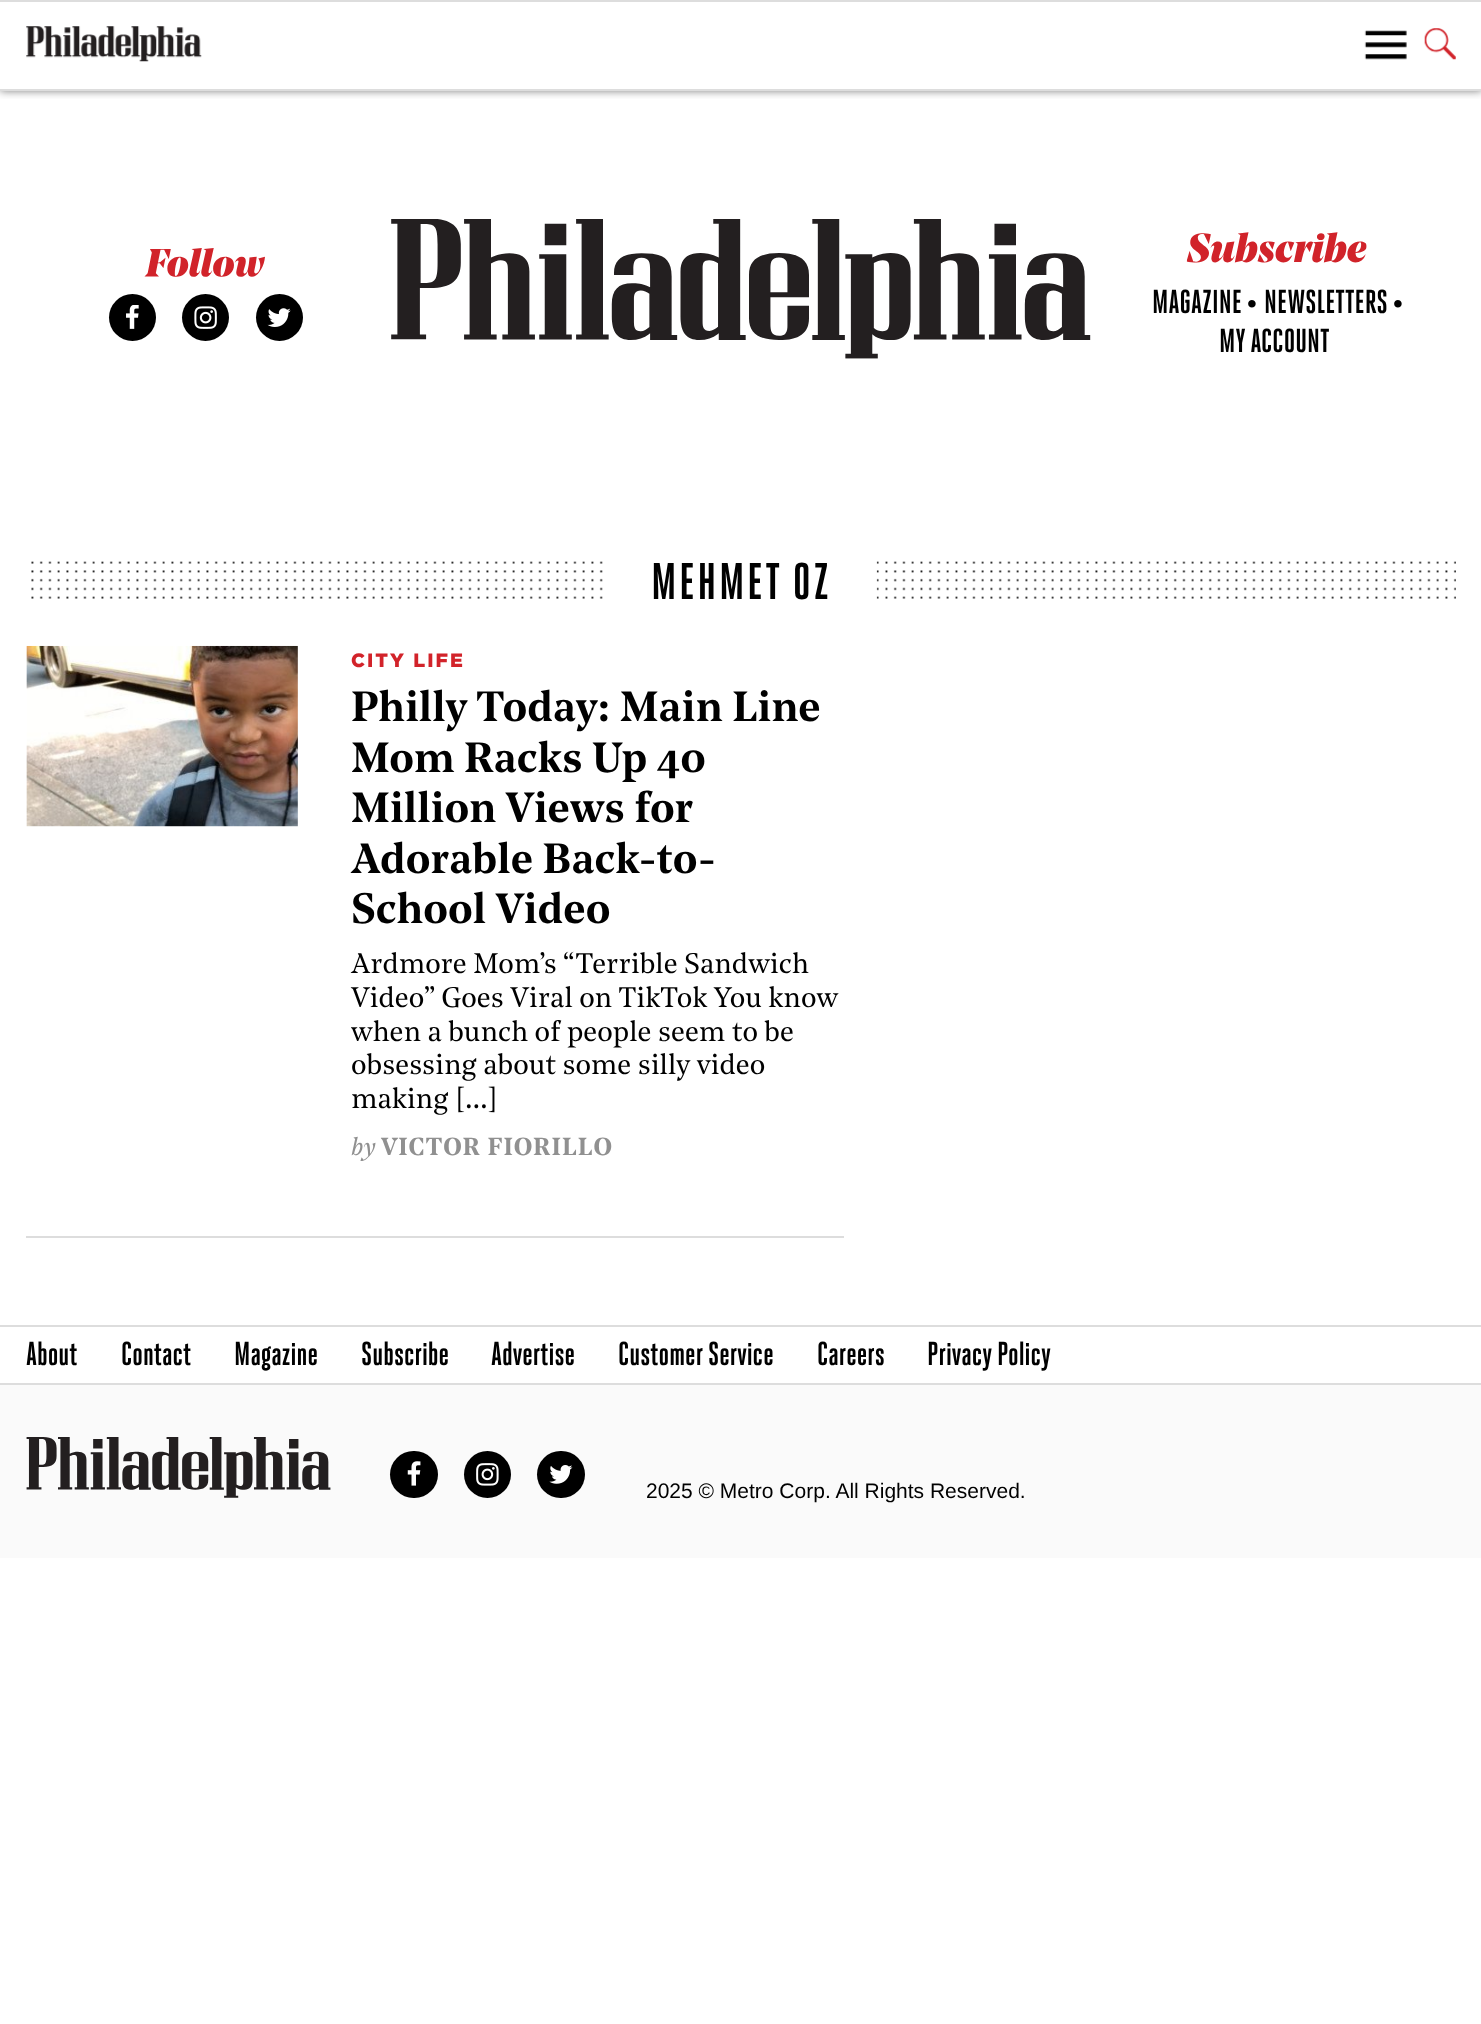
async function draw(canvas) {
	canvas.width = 1481;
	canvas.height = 2024;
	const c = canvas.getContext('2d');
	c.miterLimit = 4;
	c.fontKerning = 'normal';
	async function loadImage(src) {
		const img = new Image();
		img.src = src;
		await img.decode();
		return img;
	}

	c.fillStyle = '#fff';
	c.fillRect(0, 0, 1481, 2024);
	c.save();
	c.beginPath();
	c.rect(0, 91, 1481, 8);
	c.clip();
	c.fillStyle = '#00000080';
	c.filter = 'blur(4.5px)';
	c.beginPath();
	c.rect(0, 0, 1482, 91);
	c.fill();
	c.filter = 'none';
	c.restore();
	c.fillStyle = '#ddd';
	c.fillRect(0, 0, 1481, 2);
	c.fillRect(0, 89, 1481, 2);
	c.drawImage(await loadImage('img1.png'), 26, 26, 176, 36);
	c.drawImage(await loadImage('img2.png'), 1364, 30, 43, 30);
	c.drawImage(await loadImage('img3.png'), 1424, 28, 32, 32);
	c.drawImage(await loadImage('img4.png'), 144, 248, 121, 29);
	c.fillStyle = '#000';
	c.beginPath();
	c.arc(132.5, 317.5, 23.5, 0, 2 * Math.PI);
	c.fill();
	c.drawImage(await loadImage('img5.png'), 126, 305, 13, 24);
	c.beginPath();
	c.arc(205.5, 317.5, 23.5, 0, 2 * Math.PI);
	c.fill();
	c.drawImage(await loadImage('img6.png'), 194, 306, 23, 23);
	c.beginPath();
	c.arc(279.5, 317.5, 23.5, 0, 2 * Math.PI);
	c.fill();
	c.drawImage(await loadImage('img7.png'), 267, 308, 24, 19);
	c.drawImage(await loadImage('img8.png'), 391, 219, 700, 140);
	c.drawImage(await loadImage('img9.png'), 1186, 232, 181, 31);
	c.font = '600 31.5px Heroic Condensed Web';
	c.fillText('MAGAZINE', 1152, 313);
	c.font = '28px Liberation Sans';
	c.fillText('•', 1247, 313);
	c.font = '600 31.5px Heroic Condensed Web';
	c.fillText('NEWSLETTERS', 1264, 313);
	c.font = '28px Liberation Sans';
	c.fillText('•', 1393, 313);
	c.font = '600 31.5px Heroic Condensed Web';
	c.fillText('MY ACCOUNT', 1219, 352);
	c.drawImage(await loadImage('img10.png'), 31, 561, 572, 38);
	c.letterSpacing = '2.5px';
	c.font = '600 49px Heroic Condensed Web';
	c.fillText('MEHMET OZ', 651, 599);
	c.drawImage(await loadImage('img11.png'), 876, 561, 580, 38);
	c.fillStyle = '#ddd';
	c.fillRect(26, 1236, 818, 2);
	c.drawImage(await loadImage('img12.png'), 26, 645, 272, 182);
	c.letterSpacing = '2px';
	c.font = '900 19.25px Gotham';
	c.fillStyle = '#d2232a';
	c.fillText('CITY LIFE', 351, 667);
	c.letterSpacing = '0px';
	c.font = '600 42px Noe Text';
	c.fillStyle = '#000';
	for (const [text, x, y] of [
		['Philly Today: Main Line', 351, 721],
		['Mom Racks Up 40', 351, 772],
		['Million Views for', 351, 822],
		['Adorable Back-to-', 351, 873],
		['School Video', 351, 923],
	]) {
		c.fillText(text, x, y);
	}
	c.font = '28px Noe Text';
	for (const [text, x, y] of [
		['Ardmore Mom’s “Terrible Sandwich', 351, 973],
		['Video” Goes Viral on TikTok You know', 351, 1007],
		['when a bunch of people seem to be', 351, 1041],
		['obsessing about some silly video', 351, 1074],
		['making […]', 351, 1108],
	]) {
		c.fillText(text, x, y);
	}
	c.font = 'italic 24.5px Noe Text';
	c.fillStyle = '#909090';
	c.fillText('by', 351, 1155);
	c.letterSpacing = '1px';
	c.font = '600 24.5px Noe Text';
	c.fillText('VICTOR FIORILLO', 381, 1155);
	for (const [x, y, w, h, color] of [
		[0, 1385, 1481, 173, '#fafafa'],
		[0, 1325, 1481, 2, '#ddd'],
		[0, 1383, 1481, 2, '#ddd'],
	]) {
		c.fillStyle = color;
		c.fillRect(x, y, w, h);
	}
	c.letterSpacing = '0px';
	c.font = '600 31.5px Heroic Condensed Web';
	c.fillStyle = '#000';
	for (const [text, x, y] of [
		['About', 26, 1365],
		['Contact', 121, 1365],
		['Magazine', 234, 1365],
		['Subscribe', 361, 1365],
		['Advertise', 491, 1365],
		['Customer Service', 618, 1365],
		['Careers', 817, 1365],
		['Privacy Policy', 927, 1365],
	]) {
		c.fillText(text, x, y);
	}
	c.drawImage(await loadImage('img13.png'), 26, 1437, 305, 61);
	c.beginPath();
	c.roundRect(390, 1451, 48, 47, 23.5);
	c.fill();
	c.drawImage(await loadImage('img14.png'), 407, 1461, 14, 25);
	c.beginPath();
	c.arc(487.5, 1474.5, 23.5, 0, 2 * Math.PI);
	c.fill();
	c.drawImage(await loadImage('img15.png'), 476, 1463, 23, 23);
	c.beginPath();
	c.roundRect(537, 1451, 48, 47, 23.5);
	c.fill();
	c.drawImage(await loadImage('img16.png'), 549, 1465, 24, 19);
	c.font = '21px Liberation Sans';
	c.fillText('2025 © Metro Corp. All Rights Reserved.', 646, 1498);
}

draw(document.querySelector('canvas'));
